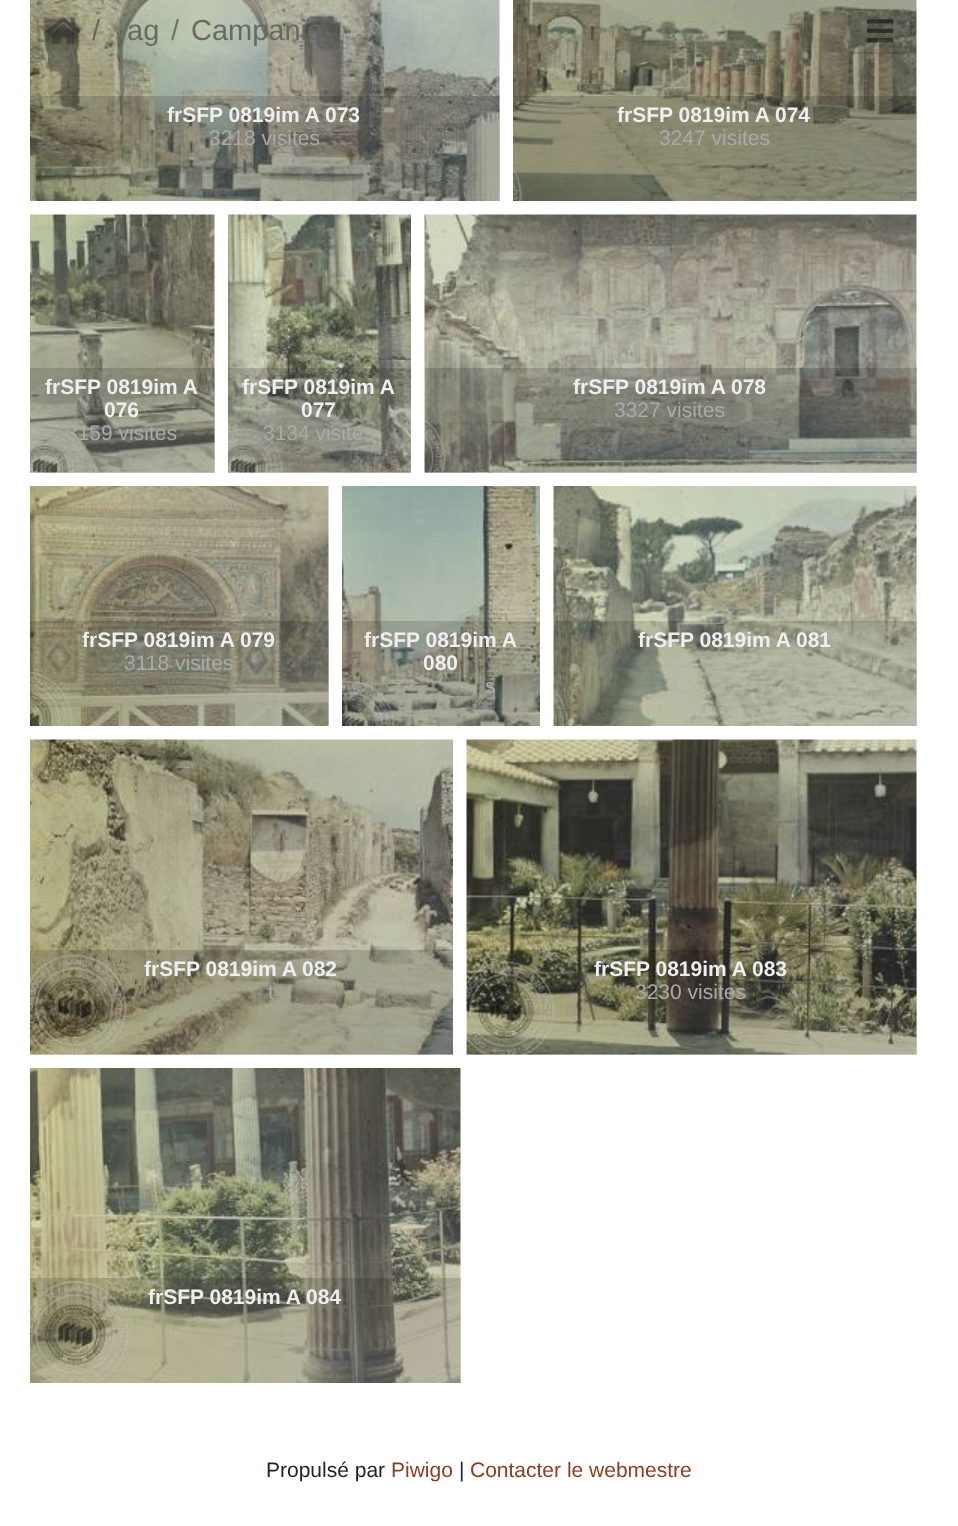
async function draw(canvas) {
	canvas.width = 958;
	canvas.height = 1526;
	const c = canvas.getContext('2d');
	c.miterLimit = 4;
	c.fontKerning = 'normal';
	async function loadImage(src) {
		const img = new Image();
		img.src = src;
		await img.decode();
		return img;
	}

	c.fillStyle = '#fff';
	c.fillRect(0, 0, 958, 1526);
	c.drawImage(await loadImage('img3.png'), 30, 0, 470, 201);
	c.drawImage(await loadImage('img1.png'), 47, 17, 34, 27);
	c.font = '29px Liberation Sans';
	c.fillStyle = '#69695a';
	c.fillText('/', 92, 40);
	c.fillStyle = '#666a61';
	c.fillText('ag', 127, 40);
	c.fillStyle = '#70766c';
	c.fillText('/', 171, 40);
	c.fillStyle = '#666a61';
	c.fillText('Campanie', 191, 40);
	c.drawImage(await loadImage('img4.png'), 513, 0, 404, 201);
	c.beginPath();
	c.roundRect(849, 10, 62, 43, 5);
	c.strokeStyle = '#0000001a';
	c.lineWidth = 2;
	c.stroke();
	c.drawImage(await loadImage('img2.png'), 867, 19, 27, 24);
	c.fillStyle = '#00000026';
	c.fillRect(30, 96, 470, 105);
	c.font = 'bold 21px Liberation Sans';
	c.fillStyle = '#eee';
	c.fillText('frSFP 0819im A 073', 167, 122);
	c.font = '21px Liberation Sans';
	c.fillStyle = '#aaa';
	c.fillText('3218 visites', 209, 145);
	c.fillStyle = '#00000026';
	c.fillRect(513, 96, 404, 105);
	c.font = 'bold 21px Liberation Sans';
	c.fillStyle = '#eee';
	c.fillText('frSFP 0819im A 074', 617, 122);
	c.font = '21px Liberation Sans';
	c.fillStyle = '#aaa';
	c.fillText('3247 visites', 659, 145);
	c.drawImage(await loadImage('img5.png'), 30, 214, 185, 259);
	c.fillStyle = '#00000026';
	c.fillRect(30, 368, 185, 105);
	c.font = 'bold 21px Liberation Sans';
	c.fillStyle = '#eee';
	c.fillText('frSFP 0819im A', 45, 394);
	c.fillText('076', 104, 417);
	c.font = '21px Liberation Sans';
	c.fillStyle = '#aaa';
	c.fillText('3159 visites', 66, 440);
	c.drawImage(await loadImage('img6.png'), 228, 214, 183, 259);
	c.fillStyle = '#00000026';
	c.fillRect(228, 368, 183, 105);
	c.font = 'bold 21px Liberation Sans';
	c.fillStyle = '#eee';
	c.fillText('frSFP 0819im A', 242, 394);
	c.fillText('077', 301, 417);
	c.font = '21px Liberation Sans';
	c.fillStyle = '#aaa';
	c.fillText('3134 visites', 263, 440);
	c.drawImage(await loadImage('img7.png'), 424, 214, 493, 259);
	c.fillStyle = '#00000026';
	c.fillRect(425, 368, 492, 105);
	c.font = 'bold 21px Liberation Sans';
	c.fillStyle = '#eee';
	c.fillText('frSFP 0819im A 078', 573, 394);
	c.font = '21px Liberation Sans';
	c.fillStyle = '#aaa';
	c.fillText('3327 visites', 614, 417);
	c.drawImage(await loadImage('img8.png'), 30, 486, 299, 240);
	c.fillStyle = '#00000026';
	c.fillRect(30, 621, 299, 105);
	c.font = 'bold 21px Liberation Sans';
	c.fillStyle = '#eee';
	c.fillText('frSFP 0819im A 079', 82, 647);
	c.font = '21px Liberation Sans';
	c.fillStyle = '#aaa';
	c.fillText('3118 visites', 124, 670);
	c.drawImage(await loadImage('img9.png'), 342, 486, 198, 240);
	c.fillStyle = '#00000026';
	c.fillRect(342, 621, 198, 105);
	c.font = 'bold 21px Liberation Sans';
	c.fillStyle = '#eee';
	c.fillText('frSFP 0819im A', 364, 647);
	c.fillText('080', 423, 670);
	c.font = '21px Liberation Sans';
	c.fillStyle = '#aaa';
	c.fillText('s', 485, 693);
	c.drawImage(await loadImage('img10.png'), 553, 486, 364, 240);
	c.fillStyle = '#00000026';
	c.fillRect(554, 621, 363, 105);
	c.font = 'bold 21px Liberation Sans';
	c.fillStyle = '#eee';
	c.fillText('frSFP 0819im A 081', 638, 647);
	c.drawImage(await loadImage('img11.png'), 30, 739, 423, 316);
	c.fillStyle = '#00000026';
	c.fillRect(30, 950, 423, 105);
	c.fillStyle = '#eee';
	c.fillText('frSFP 0819im A 082', 144, 976);
	c.font = '21px Liberation Sans';
	c.fillStyle = '#aaa';
	c.fillText('t', 268, 999);
	c.drawImage(await loadImage('img12.png'), 466, 739, 451, 316);
	c.fillStyle = '#00000026';
	c.fillRect(467, 950, 450, 105);
	c.font = 'bold 21px Liberation Sans';
	c.fillStyle = '#eee';
	c.fillText('frSFP 0819im A 083', 594, 976);
	c.font = '21px Liberation Sans';
	c.fillStyle = '#aaa';
	c.fillText('3230 visites', 635, 999);
	c.drawImage(await loadImage('img13.png'), 30, 1068, 431, 315);
	c.fillStyle = '#00000026';
	c.fillRect(30, 1278, 431, 105);
	c.font = 'bold 21px Liberation Sans';
	c.fillStyle = '#eee';
	c.fillText('frSFP 0819im A 084', 148, 1304);
	c.font = '21px Liberation Sans';
	c.fillStyle = '#212529';
	c.fillText('Propulsé par', 266, 1477);
	c.fillStyle = '#8b3e22';
	c.fillText('Piwigo', 391, 1477);
	c.fillStyle = '#212529';
	c.fillText('|', 459, 1477);
	c.fillStyle = '#8b3e22';
	c.fillText('Contacter le webmestre', 470, 1477);
}

draw(document.querySelector('canvas'));
